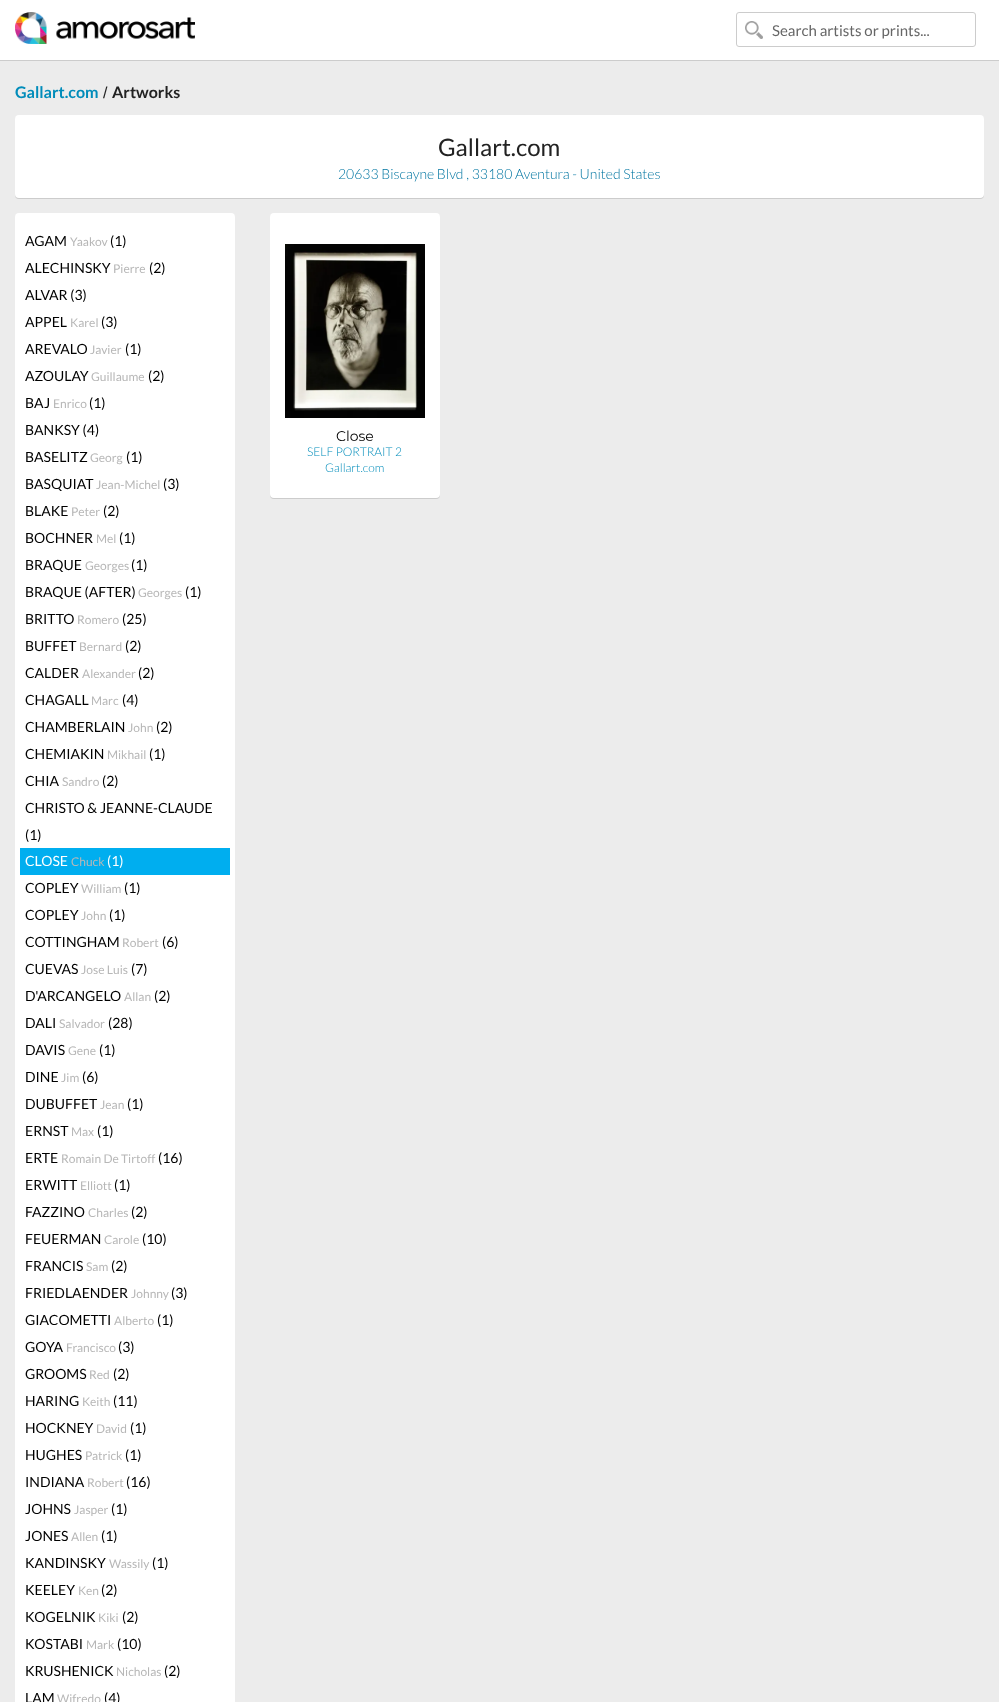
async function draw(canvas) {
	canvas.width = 999;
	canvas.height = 1702;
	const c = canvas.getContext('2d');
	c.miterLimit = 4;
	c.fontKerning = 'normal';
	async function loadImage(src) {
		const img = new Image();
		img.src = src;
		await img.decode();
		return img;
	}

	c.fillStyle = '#ececec';
	c.fillRect(0, 0, 999, 1702);
	c.fillStyle = '#ccc';
	c.filter = 'blur(0.5px)';
	c.beginPath();
	c.rect(0, 1, 999, 60);
	c.fill();
	c.filter = 'none';
	c.fillStyle = '#fff';
	c.fillRect(0, 0, 999, 60);
	c.drawImage(await loadImage('img1.png'), 15, 12, 180, 32);
	c.drawImage(await loadImage('img2.png'), 745, 21, 18, 18);
	c.beginPath();
	c.roundRect(736.5, 12.5, 239, 34, 2.5);
	c.strokeStyle = '#ccc';
	c.stroke();
	c.font = '15px Lato';
	c.fillStyle = '#666';
	c.fillText('Search artists or prints...', 772, 36);
	c.font = 'bold 16px Lato';
	c.fillStyle = '#008cba';
	c.fillText('Gallart.com', 15, 98);
	c.font = '16px Liberation Sans';
	c.fillStyle = '#222';
	c.fillText('/', 103, 98);
	c.font = 'bold 16px Lato';
	c.fillText('Artworks', 112, 98);
	c.fillStyle = '#ccc';
	c.filter = 'blur(0.5px)';
	c.beginPath();
	c.roundRect(15, 116, 969, 83, 4);
	c.fill();
	c.filter = 'none';
	c.fillStyle = '#fff';
	c.beginPath();
	c.roundRect(15, 115, 969, 83, 4);
	c.fill();
	c.font = '24px Lato';
	c.fillStyle = '#222';
	c.fillText('Gallart.com', 438, 156);
	c.font = '300 14px Lato';
	c.fillStyle = '#0075a1';
	c.fillText('20633 Biscayne Blvd , 33180 Aventura - United States', 338, 179);
	c.fillStyle = '#ccc';
	c.filter = 'blur(0.5px)';
	c.beginPath();
	c.roundRect(15, 214, 220, 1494, 4);
	c.fill();
	c.filter = 'none';
	c.fillStyle = '#fff';
	c.beginPath();
	c.roundRect(15, 213, 220, 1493, 4);
	c.fill();
	c.font = '14px Lato';
	c.fillStyle = '#000';
	c.fillText('AGAM', 25, 246);
	c.font = '12px Lato';
	c.fillStyle = '#b7b7b7';
	c.fillText('Yaakov', 70, 246);
	c.font = '14px Lato';
	c.fillStyle = '#000';
	c.fillText('(1)', 110, 246);
	c.fillText('ALECHINSKY', 25, 273);
	c.font = '12px Lato';
	c.fillStyle = '#b7b7b7';
	c.fillText('Pierre', 113, 273);
	c.font = '14px Lato';
	c.fillStyle = '#000';
	for (const [text, x, y] of [
		['(2)', 149, 273],
		['ALVAR (3)', 25, 300],
		['APPEL', 25, 327],
	]) {
		c.fillText(text, x, y);
	}
	c.font = '12px Lato';
	c.fillStyle = '#b7b7b7';
	c.fillText('Karel', 70, 327);
	c.font = '14px Lato';
	c.fillStyle = '#000';
	c.fillText('(3)', 101, 327);
	c.fillText('AREVALO', 25, 354);
	c.font = '12px Lato';
	c.fillStyle = '#b7b7b7';
	c.fillText('Javier', 90, 354);
	c.font = '14px Lato';
	c.fillStyle = '#000';
	c.fillText('(1)', 125, 354);
	c.fillText('AZOULAY', 25, 381);
	c.font = '12px Lato';
	c.fillStyle = '#b7b7b7';
	c.fillText('Guillaume', 91, 381);
	c.font = '14px Lato';
	c.fillStyle = '#000';
	c.fillText('(2)', 148, 381);
	c.fillText('BAJ', 25, 408);
	c.font = '12px Lato';
	c.fillStyle = '#b7b7b7';
	c.fillText('Enrico', 53, 408);
	c.font = '14px Lato';
	c.fillStyle = '#000';
	for (const [text, x, y] of [
		['(1)', 89, 408],
		['BANKSY (4)', 25, 435],
		['BASELITZ', 25, 462],
	]) {
		c.fillText(text, x, y);
	}
	c.font = '12px Lato';
	c.fillStyle = '#b7b7b7';
	c.fillText('Georg', 90, 462);
	c.font = '14px Lato';
	c.fillStyle = '#000';
	c.fillText('(1)', 126, 462);
	c.fillText('BASQUIAT', 25, 489);
	c.font = '12px Lato';
	c.fillStyle = '#b7b7b7';
	c.fillText('Jean-Michel', 96, 489);
	c.font = '14px Lato';
	c.fillStyle = '#000';
	c.fillText('(3)', 163, 489);
	c.fillText('BLAKE', 25, 516);
	c.font = '12px Lato';
	c.fillStyle = '#b7b7b7';
	c.fillText('Peter', 71, 516);
	c.font = '14px Lato';
	c.fillStyle = '#000';
	c.fillText('(2)', 103, 516);
	c.fillText('BOCHNER', 25, 543);
	c.font = '12px Lato';
	c.fillStyle = '#b7b7b7';
	c.fillText('Mel', 96, 543);
	c.font = '14px Lato';
	c.fillStyle = '#000';
	c.fillText('(1)', 119, 543);
	c.fillText('BRAQUE', 25, 570);
	c.font = '12px Lato';
	c.fillStyle = '#b7b7b7';
	c.fillText('Georges', 85, 570);
	c.font = '14px Lato';
	c.fillStyle = '#000';
	c.fillText('(1)', 131, 570);
	c.fillText('BRAQUE (AFTER)', 25, 597);
	c.font = '12px Lato';
	c.fillStyle = '#b7b7b7';
	c.fillText('Georges', 138, 597);
	c.font = '14px Lato';
	c.fillStyle = '#000';
	c.fillText('(1)', 185, 597);
	c.fillText('BRITTO', 25, 624);
	c.font = '12px Lato';
	c.fillStyle = '#b7b7b7';
	c.fillText('Romero', 77, 624);
	c.font = '14px Lato';
	c.fillStyle = '#000';
	c.fillText('(25)', 122, 624);
	c.fillText('BUFFET', 25, 651);
	c.font = '12px Lato';
	c.fillStyle = '#b7b7b7';
	c.fillText('Bernard', 79, 651);
	c.font = '14px Lato';
	c.fillStyle = '#000';
	c.fillText('(2)', 125, 651);
	c.fillText('CALDER', 25, 678);
	c.font = '12px Lato';
	c.fillStyle = '#b7b7b7';
	c.fillText('Alexander', 82, 678);
	c.font = '14px Lato';
	c.fillStyle = '#000';
	c.fillText('(2)', 138, 678);
	c.fillText('CHAGALL', 25, 705);
	c.font = '12px Lato';
	c.fillStyle = '#b7b7b7';
	c.fillText('Marc', 91, 705);
	c.font = '14px Lato';
	c.fillStyle = '#000';
	c.fillText('(4)', 122, 705);
	c.fillText('CHAMBERLAIN', 25, 732);
	c.font = '12px Lato';
	c.fillStyle = '#b7b7b7';
	c.fillText('John', 128, 732);
	c.font = '14px Lato';
	c.fillStyle = '#000';
	c.fillText('(2)', 156, 732);
	c.fillText('CHEMIAKIN', 25, 759);
	c.font = '12px Lato';
	c.fillStyle = '#b7b7b7';
	c.fillText('Mikhail', 107, 759);
	c.font = '14px Lato';
	c.fillStyle = '#000';
	c.fillText('(1)', 149, 759);
	c.fillText('CHIA', 25, 786);
	c.font = '12px Lato';
	c.fillStyle = '#b7b7b7';
	c.fillText('Sandro', 62, 786);
	c.font = '14px Lato';
	c.fillStyle = '#000';
	for (const [text, x, y] of [
		['(2)', 102, 786],
		['CHRISTO & JEANNE-CLAUDE', 25, 813],
		['(1)', 25, 840],
	]) {
		c.fillText(text, x, y);
	}
	c.fillStyle = '#00aeef';
	c.fillRect(20, 848, 210, 27);
	c.fillStyle = '#fff';
	c.fillText('CLOSE', 25, 866);
	c.font = '12px Lato';
	c.fillStyle = '#b7b7b7';
	c.fillText('Chuck', 71, 866);
	c.font = '14px Lato';
	c.fillStyle = '#fff';
	c.fillText('(1)', 107, 866);
	c.fillStyle = '#000';
	c.fillText('COPLEY', 25, 893);
	c.font = '12px Lato';
	c.fillStyle = '#b7b7b7';
	c.fillText('William', 81, 893);
	c.font = '14px Lato';
	c.fillStyle = '#000';
	c.fillText('(1)', 124, 893);
	c.fillText('COPLEY', 25, 920);
	c.font = '12px Lato';
	c.fillStyle = '#b7b7b7';
	c.fillText('John', 81, 920);
	c.font = '14px Lato';
	c.fillStyle = '#000';
	c.fillText('(1)', 109, 920);
	c.fillText('COTTINGHAM', 25, 947);
	c.font = '12px Lato';
	c.fillStyle = '#b7b7b7';
	c.fillText('Robert', 122, 947);
	c.font = '14px Lato';
	c.fillStyle = '#000';
	c.fillText('(6)', 162, 947);
	c.fillText('CUEVAS', 25, 974);
	c.font = '12px Lato';
	c.fillStyle = '#b7b7b7';
	c.fillText('Jose Luis', 81, 974);
	c.font = '14px Lato';
	c.fillStyle = '#000';
	c.fillText('(7)', 131, 974);
	c.fillText('D\'ARCANGELO', 25, 1001);
	c.font = '12px Lato';
	c.fillStyle = '#b7b7b7';
	c.fillText('Allan', 124, 1001);
	c.font = '14px Lato';
	c.fillStyle = '#000';
	c.fillText('(2)', 154, 1001);
	c.fillText('DALI', 25, 1028);
	c.font = '12px Lato';
	c.fillStyle = '#b7b7b7';
	c.fillText('Salvador', 59, 1028);
	c.font = '14px Lato';
	c.fillStyle = '#000';
	c.fillText('(28)', 108, 1028);
	c.fillText('DAVIS', 25, 1055);
	c.font = '12px Lato';
	c.fillStyle = '#b7b7b7';
	c.fillText('Gene', 68, 1055);
	c.font = '14px Lato';
	c.fillStyle = '#000';
	c.fillText('(1)', 99, 1055);
	c.fillText('DINE', 25, 1082);
	c.font = '12px Lato';
	c.fillStyle = '#b7b7b7';
	c.fillText('Jim', 61, 1082);
	c.font = '14px Lato';
	c.fillStyle = '#000';
	c.fillText('(6)', 82, 1082);
	c.fillText('DUBUFFET', 25, 1109);
	c.font = '12px Lato';
	c.fillStyle = '#b7b7b7';
	c.fillText('Jean', 100, 1109);
	c.font = '14px Lato';
	c.fillStyle = '#000';
	c.fillText('(1)', 127, 1109);
	c.fillText('ERNST', 25, 1136);
	c.font = '12px Lato';
	c.fillStyle = '#b7b7b7';
	c.fillText('Max', 71, 1136);
	c.font = '14px Lato';
	c.fillStyle = '#000';
	c.fillText('(1)', 97, 1136);
	c.fillText('ERTE', 25, 1163);
	c.font = '12px Lato';
	c.fillStyle = '#b7b7b7';
	c.fillText('Romain De Tirtoff', 61, 1163);
	c.font = '14px Lato';
	c.fillStyle = '#000';
	c.fillText('(16)', 158, 1163);
	c.fillText('ERWITT', 25, 1190);
	c.font = '12px Lato';
	c.fillStyle = '#b7b7b7';
	c.fillText('Elliott', 80, 1190);
	c.font = '14px Lato';
	c.fillStyle = '#000';
	c.fillText('(1)', 114, 1190);
	c.fillText('FAZZINO', 25, 1217);
	c.font = '12px Lato';
	c.fillStyle = '#b7b7b7';
	c.fillText('Charles', 88, 1217);
	c.font = '14px Lato';
	c.fillStyle = '#000';
	c.fillText('(2)', 131, 1217);
	c.fillText('FEUERMAN', 25, 1244);
	c.font = '12px Lato';
	c.fillStyle = '#b7b7b7';
	c.fillText('Carole', 104, 1244);
	c.font = '14px Lato';
	c.fillStyle = '#000';
	c.fillText('(10)', 142, 1244);
	c.fillText('FRANCIS', 25, 1271);
	c.font = '12px Lato';
	c.fillStyle = '#b7b7b7';
	c.fillText('Sam', 86, 1271);
	c.font = '14px Lato';
	c.fillStyle = '#000';
	c.fillText('(2)', 111, 1271);
	c.fillText('FRIEDLAENDER', 25, 1298);
	c.font = '12px Lato';
	c.fillStyle = '#b7b7b7';
	c.fillText('Johnny', 131, 1298);
	c.font = '14px Lato';
	c.fillStyle = '#000';
	c.fillText('(3)', 171, 1298);
	c.fillText('GIACOMETTI', 25, 1325);
	c.font = '12px Lato';
	c.fillStyle = '#b7b7b7';
	c.fillText('Alberto', 114, 1325);
	c.font = '14px Lato';
	c.fillStyle = '#000';
	c.fillText('(1)', 157, 1325);
	c.fillText('GOYA', 25, 1352);
	c.font = '12px Lato';
	c.fillStyle = '#b7b7b7';
	c.fillText('Francisco', 66, 1352);
	c.font = '14px Lato';
	c.fillStyle = '#000';
	c.fillText('(3)', 118, 1352);
	c.fillText('GROOMS', 25, 1379);
	c.font = '12px Lato';
	c.fillStyle = '#b7b7b7';
	c.fillText('Red', 89, 1379);
	c.font = '14px Lato';
	c.fillStyle = '#000';
	c.fillText('(2)', 113, 1379);
	c.fillText('HARING', 25, 1406);
	c.font = '12px Lato';
	c.fillStyle = '#b7b7b7';
	c.fillText('Keith', 82, 1406);
	c.font = '14px Lato';
	c.fillStyle = '#000';
	c.fillText('(11)', 113, 1406);
	c.fillText('HOCKNEY', 25, 1433);
	c.font = '12px Lato';
	c.fillStyle = '#b7b7b7';
	c.fillText('David', 96, 1433);
	c.font = '14px Lato';
	c.fillStyle = '#000';
	c.fillText('(1)', 130, 1433);
	c.fillText('HUGHES', 25, 1460);
	c.font = '12px Lato';
	c.fillStyle = '#b7b7b7';
	c.fillText('Patrick', 85, 1460);
	c.font = '14px Lato';
	c.fillStyle = '#000';
	c.fillText('(1)', 125, 1460);
	c.fillText('INDIANA', 25, 1487);
	c.font = '12px Lato';
	c.fillStyle = '#b7b7b7';
	c.fillText('Robert', 87, 1487);
	c.font = '14px Lato';
	c.fillStyle = '#000';
	c.fillText('(16)', 126, 1487);
	c.fillText('JOHNS', 25, 1514);
	c.font = '12px Lato';
	c.fillStyle = '#b7b7b7';
	c.fillText('Jasper', 74, 1514);
	c.font = '14px Lato';
	c.fillStyle = '#000';
	c.fillText('(1)', 111, 1514);
	c.fillText('JONES', 25, 1541);
	c.font = '12px Lato';
	c.fillStyle = '#b7b7b7';
	c.fillText('Allen', 71, 1541);
	c.font = '14px Lato';
	c.fillStyle = '#000';
	c.fillText('(1)', 101, 1541);
	c.fillText('KANDINSKY', 25, 1568);
	c.font = '12px Lato';
	c.fillStyle = '#b7b7b7';
	c.fillText('Wassily', 109, 1568);
	c.font = '14px Lato';
	c.fillStyle = '#000';
	c.fillText('(1)', 152, 1568);
	c.fillText('KEELEY', 25, 1595);
	c.font = '12px Lato';
	c.fillStyle = '#b7b7b7';
	c.fillText('Ken', 78, 1595);
	c.font = '14px Lato';
	c.fillStyle = '#000';
	c.fillText('(2)', 101, 1595);
	c.fillText('KOGELNIK', 25, 1622);
	c.font = '12px Lato';
	c.fillStyle = '#b7b7b7';
	c.fillText('Kiki', 98, 1622);
	c.font = '14px Lato';
	c.fillStyle = '#000';
	c.fillText('(2)', 122, 1622);
	c.fillText('KOSTABI', 25, 1649);
	c.font = '12px Lato';
	c.fillStyle = '#b7b7b7';
	c.fillText('Mark', 86, 1649);
	c.font = '14px Lato';
	c.fillStyle = '#000';
	c.fillText('(10)', 117, 1649);
	c.fillText('KRUSHENICK', 25, 1676);
	c.font = '12px Lato';
	c.fillStyle = '#b7b7b7';
	c.fillText('Nicholas', 116, 1676);
	c.font = '14px Lato';
	c.fillStyle = '#000';
	c.fillText('(2)', 164, 1676);
	c.fillText('LAM', 25, 1703);
	c.font = '12px Lato';
	c.fillStyle = '#b7b7b7';
	c.fillText('Wifredo', 57, 1703);
	c.font = '14px Lato';
	c.fillStyle = '#000';
	c.fillText('(4)', 104, 1703);
	c.fillStyle = '#ccc';
	c.filter = 'blur(0.5px)';
	c.beginPath();
	c.roundRect(270, 214, 170, 285, 4);
	c.fill();
	c.filter = 'none';
	c.fillStyle = '#fff';
	c.beginPath();
	c.roundRect(270, 213, 170, 285, 4);
	c.fill();
	c.drawImage(await loadImage('img3.png'), 285, 244, 140, 174);
	c.font = '14px Montserrat';
	c.fillStyle = '#000';
	c.fillText('Close', 336, 441);
	c.font = '300 12px Lato';
	c.fillStyle = '#008cba';
	c.fillText('SELF PORTRAIT 2', 307, 456);
	c.fillText('Gallart.com', 325, 472);
}

draw(document.querySelector('canvas'));
